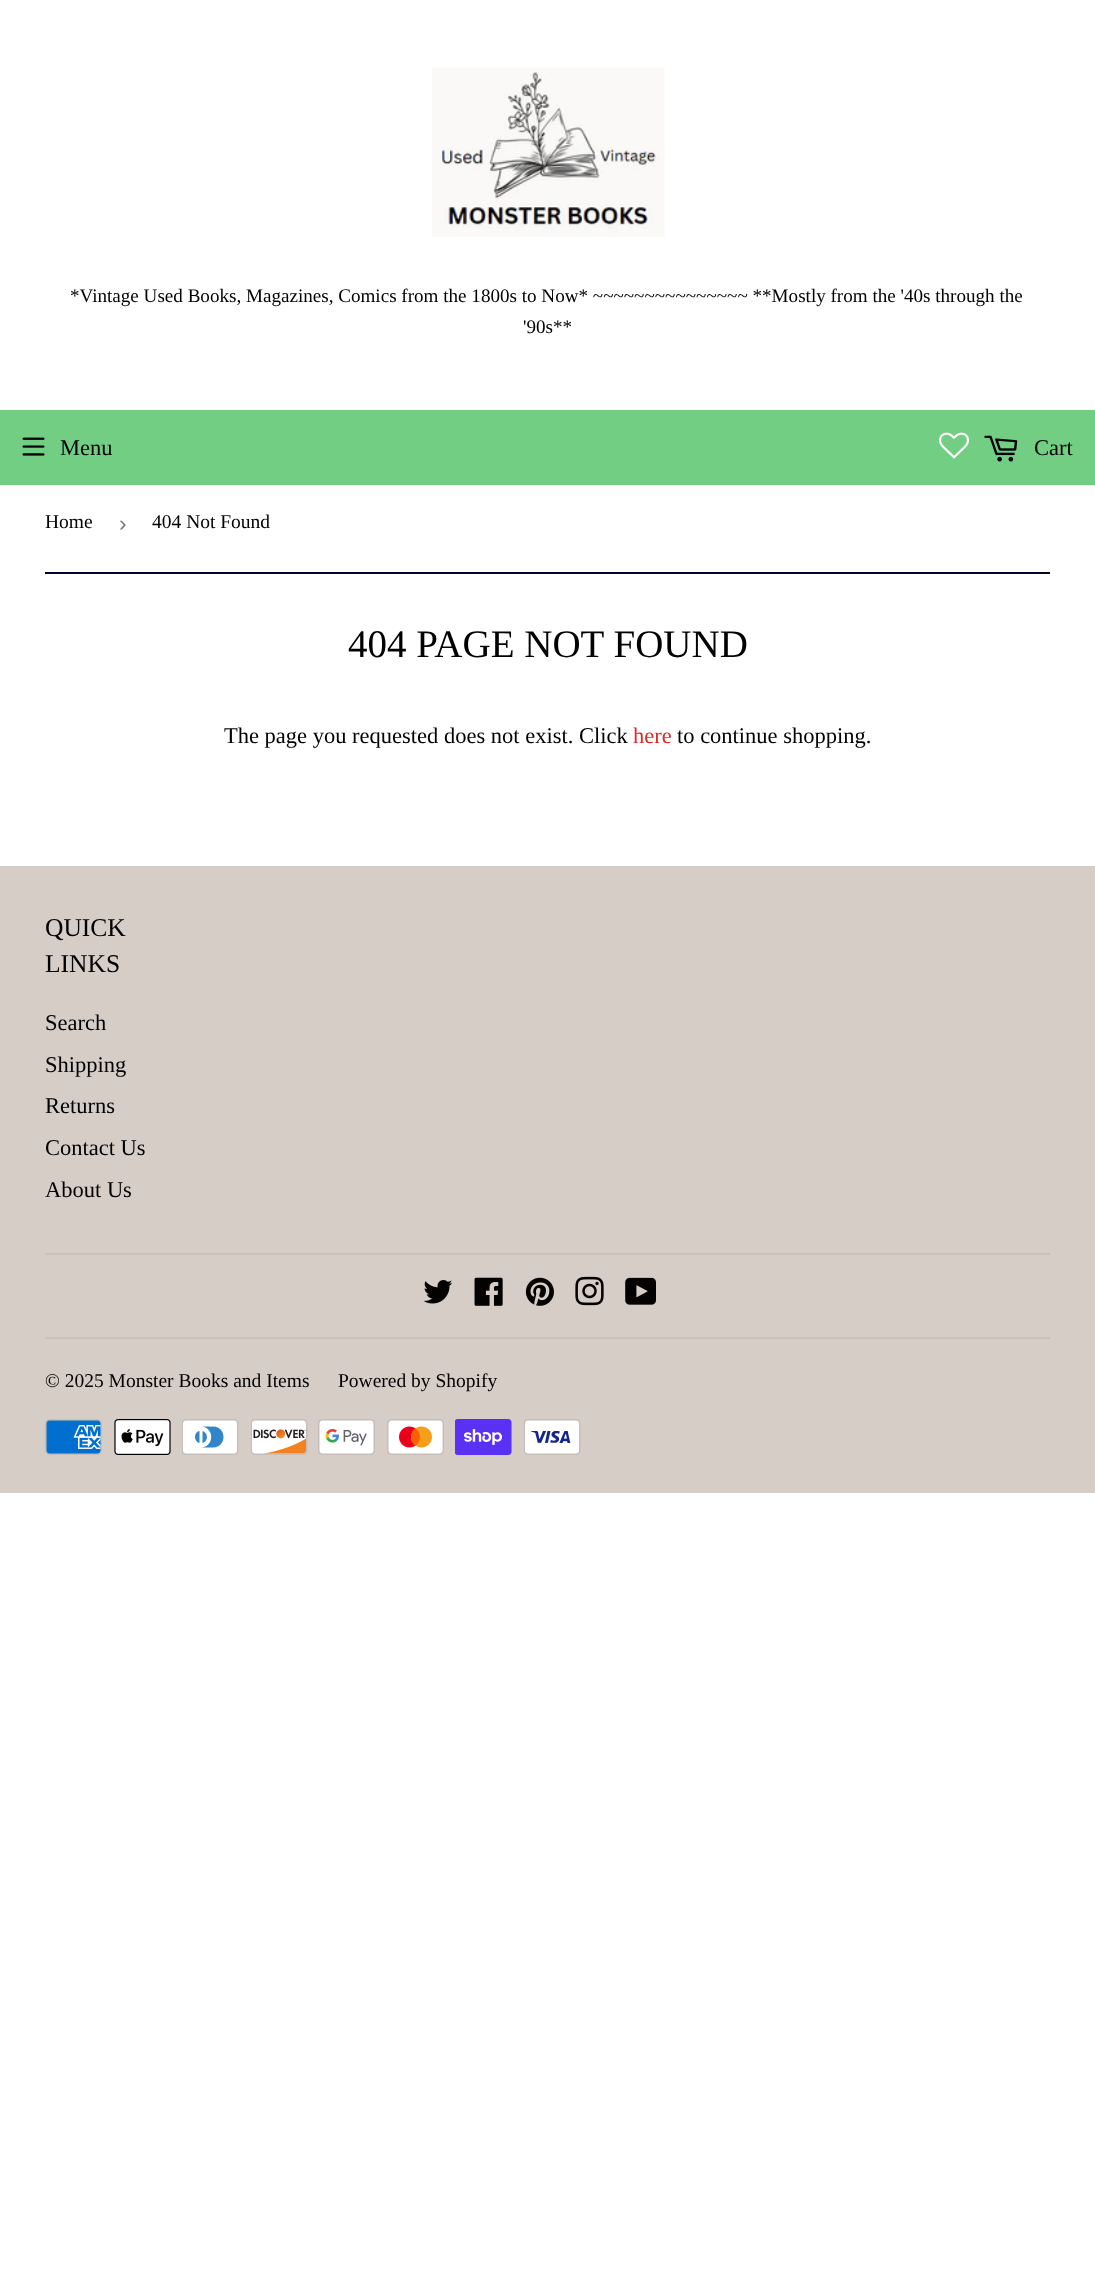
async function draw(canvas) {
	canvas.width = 1095;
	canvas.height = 2283;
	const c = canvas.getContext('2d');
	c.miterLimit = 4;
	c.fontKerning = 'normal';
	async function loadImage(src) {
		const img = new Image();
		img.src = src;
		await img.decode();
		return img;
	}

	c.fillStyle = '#fff';
	c.fillRect(0, 0, 1095, 2283);
	c.drawImage(await loadImage('img1.png'), 432, 67, 233, 170);
	c.font = '19.1px Liberation Serif';
	c.fillStyle = '#000';
	c.fillText('*Vintage Used Books, Magazines, Comics from the 1800s to Now* ~~~~~~~~~~~~~~~ **Mostly from the \'40s through the', 70, 302);
	c.fillText('\'90s**', 523, 333);
	c.fillStyle = '#71ce82';
	c.fillRect(0, 410, 1095, 75);
	c.drawImage(await loadImage('img2.png'), 22, 437, 23, 19);
	c.font = '22.5px Liberation Serif';
	c.fillStyle = '#000';
	c.fillText('Menu', 60, 455);
	c.drawImage(await loadImage('img3.png'), 939, 432, 30, 27);
	c.drawImage(await loadImage('img4.png'), 984, 435, 34, 27);
	c.fillText('Cart', 1034, 455);
	c.fillStyle = '#03042d';
	c.fillRect(45, 572, 1005, 2);
	c.font = '19.5px Liberation Serif';
	c.fillStyle = '#000';
	c.fillText('Home', 45, 528);
	c.font = '22.5px Liberation Sans';
	c.fillStyle = '#767676';
	c.fillText('›', 119, 531);
	c.font = '19.5px Liberation Serif';
	c.fillStyle = '#000';
	c.fillText('404 Not Found', 152, 528);
	c.font = '39px Liberation Serif';
	c.fillText('404 PAGE NOT FOUND', 348, 657);
	c.font = '22.5px Liberation Serif';
	c.fillText('The page you requested does not exist. Click', 224, 743);
	c.fillStyle = '#dc2929';
	c.fillText('here', 633, 743);
	c.fillStyle = '#000';
	c.fillText('to continue shopping.', 677, 743);
	c.fillStyle = '#d6cdc7';
	c.fillRect(0, 866, 1095, 627);
	c.font = '25.5px Liberation Serif';
	c.fillStyle = '#000';
	c.fillText('QUICK', 45, 936);
	c.fillText('LINKS', 45, 972);
	c.font = '22.5px Liberation Serif';
	for (const [text, x, y] of [
		['Search', 45, 1030],
		['Shipping', 45, 1072],
		['Returns', 45, 1113],
		['Contact Us', 45, 1155],
		['About Us', 45, 1197],
	]) {
		c.fillText(text, x, y);
	}
	c.fillStyle = '#cbc0b8';
	c.fillRect(45, 1253, 1005, 2);
	c.drawImage(await loadImage('img5.png'), 423, 1280, 30, 24);
	c.drawImage(await loadImage('img6.png'), 474, 1277, 29, 29);
	c.drawImage(await loadImage('img7.png'), 525, 1277, 29, 29);
	c.drawImage(await loadImage('img8.png'), 575, 1276, 29, 30);
	c.drawImage(await loadImage('img9.png'), 625, 1277, 31, 28);
	c.fillRect(45, 1337, 1005, 2);
	c.font = '19.5px Liberation Serif';
	c.fillStyle = '#000';
	c.fillText('© 2025 Monster Books and Items', 45, 1387);
	c.fillText('Powered by Shopify', 338, 1387);
	c.drawImage(await loadImage('img10.png'), 45, 1419, 57, 36);
	c.drawImage(await loadImage('img11.png'), 114, 1419, 57, 36);
	c.drawImage(await loadImage('img12.png'), 182, 1419, 57, 36);
	c.drawImage(await loadImage('img13.png'), 251, 1419, 57, 36);
	c.drawImage(await loadImage('img14.png'), 318, 1419, 57, 36);
	c.drawImage(await loadImage('img15.png'), 387, 1419, 57, 36);
	c.drawImage(await loadImage('img16.png'), 455, 1419, 57, 36);
	c.drawImage(await loadImage('img17.png'), 524, 1419, 57, 36);
}

draw(document.querySelector('canvas'));
